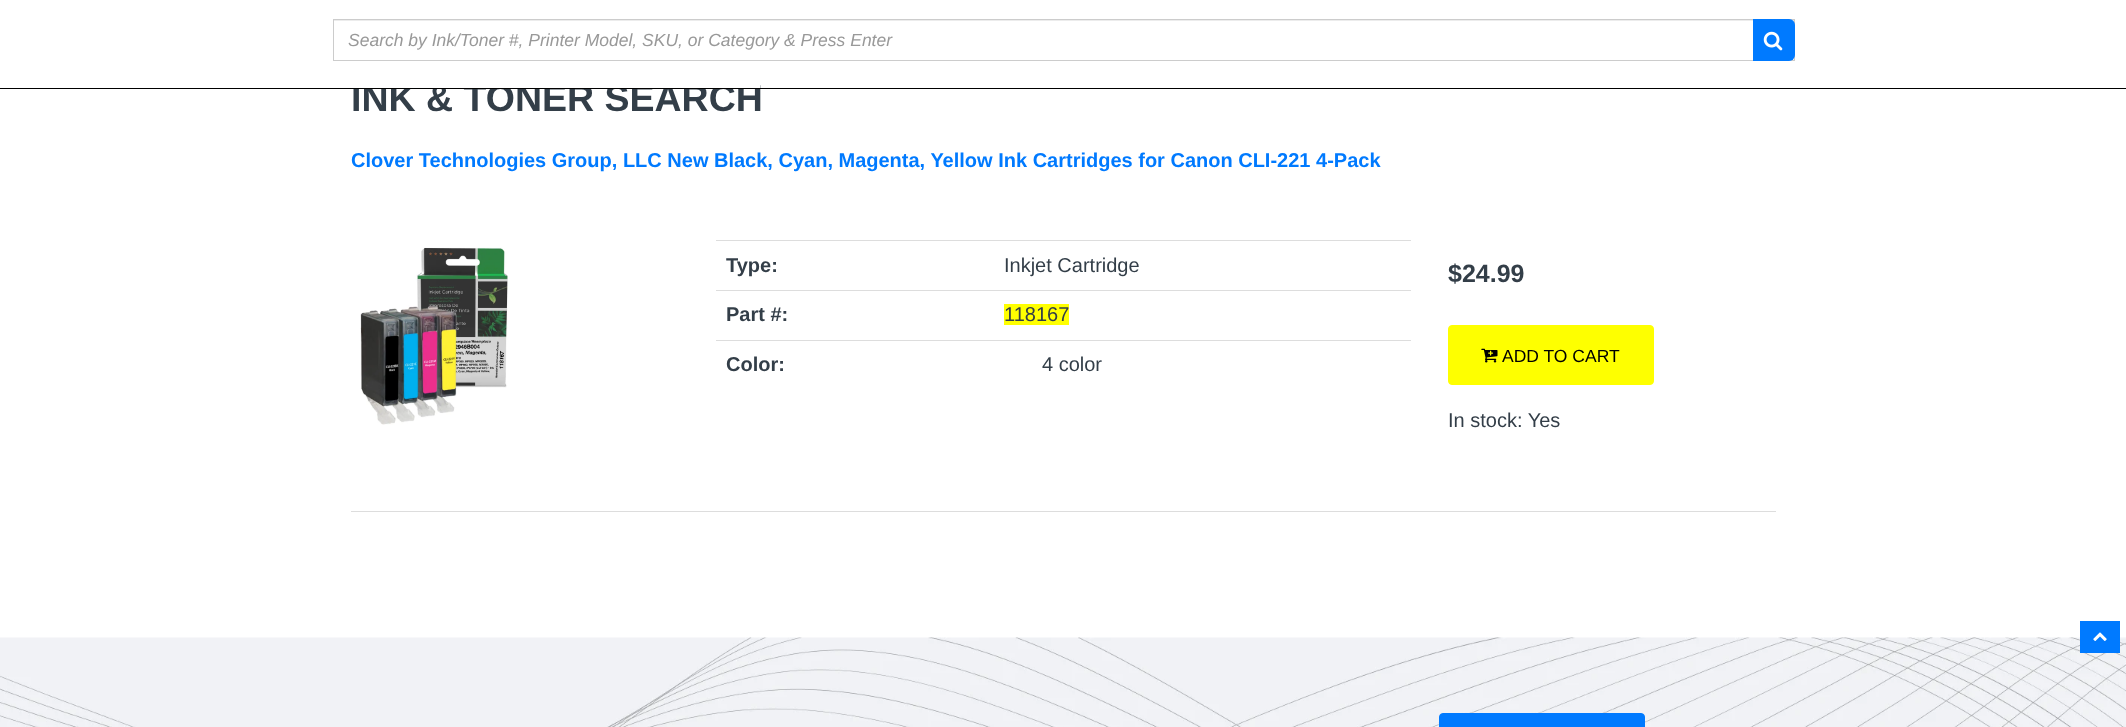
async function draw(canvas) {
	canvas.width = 2126;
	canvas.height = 727;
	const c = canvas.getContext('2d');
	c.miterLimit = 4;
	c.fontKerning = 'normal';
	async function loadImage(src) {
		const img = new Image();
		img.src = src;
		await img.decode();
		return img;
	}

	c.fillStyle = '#fff';
	c.fillRect(0, 0, 2126, 727);
	c.font = 'bold 37.5px Liberation Sans';
	c.fillStyle = '#333e48';
	c.fillText('INK & TONER SEARCH', 351, 111);
	for (const [x, y, w, h, color] of [
		[0, 88, 2126, 1, '#000'],
		[353, 84, 407, 4, '#fff'],
		[334, 20, 1460, 1, '#ececec'],
	]) {
		c.fillStyle = color;
		c.fillRect(x, y, w, h);
	}
	c.strokeStyle = '#ccc';
	c.strokeRect(333.5, 19.5, 1461, 41);
	c.font = 'italic 17.5px Liberation Sans';
	c.fillStyle = '#999';
	c.fillText('Search by Ink/Toner #, Printer Model, SKU, or Category & Press Enter', 348, 46);
	c.fillStyle = '#007aff';
	c.beginPath();
	c.roundRect(1753, 19, 42, 42, [0, 6, 6, 0]);
	c.fill();
	c.drawImage(await loadImage('img1.png'), 1763, 31, 20, 20);
	c.font = 'bold 20px Liberation Sans';
	c.fillText('Clover Technologies Group, LLC New Black, Cyan, Magenta, Yellow Ink Cartridges for Canon CLI-221 4-Pack', 351, 167);
	c.drawImage(await loadImage('img2.png'), 360, 247, 148, 178);
	c.fillStyle = '#333e48';
	c.fillText('Type:', 726, 272);
	c.fillStyle = '#ddd';
	c.fillRect(716, 240, 695, 1);
	c.font = '20px Liberation Sans';
	c.fillStyle = '#333e48';
	c.fillText('Inkjet Cartridge', 1004, 272);
	c.font = 'bold 20px Liberation Sans';
	c.fillText('Part #:', 726, 321);
	c.fillStyle = '#ddd';
	c.fillRect(716, 290, 695, 1);
	c.fillStyle = '#ff0';
	c.fillRect(1004, 304, 65, 21);
	c.font = '20px Liberation Sans';
	c.fillStyle = '#333e48';
	c.fillText('118167', 1004, 321);
	c.font = 'bold 20px Liberation Sans';
	c.fillText('Color:', 726, 371);
	c.fillStyle = '#ddd';
	c.fillRect(716, 340, 695, 1);
	c.font = '20px Liberation Sans';
	c.fillStyle = '#333e48';
	c.fillText('4 color', 1042, 371);
	c.font = 'bold 25px Liberation Sans';
	c.fillText('$24.99', 1448, 282);
	c.fillStyle = '#feff00';
	c.beginPath();
	c.roundRect(1448.5, 325.5, 205, 59, 3.5);
	c.fill();
	c.strokeStyle = '#feff00';
	c.stroke();
	c.drawImage(await loadImage('img3.png'), 1481, 348, 17, 15);
	c.font = '17.5px Liberation Sans';
	c.fillStyle = '#000';
	c.fillText('ADD TO CART', 1502, 362);
	c.font = '20px Liberation Sans';
	c.fillStyle = '#333e48';
	c.fillText('In stock: Yes', 1448, 427);
	c.fillStyle = '#ddd';
	c.fillRect(351, 511, 1425, 1);
	c.drawImage(await loadImage('img5.png'), 0, 637, 2126, 90);
	c.fillStyle = '#007aff';
	c.fillRect(2080, 621, 40, 32);
	c.drawImage(await loadImage('img4.png'), 2093, 632, 14, 9);
	c.beginPath();
	c.roundRect(1439.5, 713.5, 205, 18, 3.5);
	c.fill();
	c.strokeStyle = '#007aff';
	c.stroke();
}

draw(document.querySelector('canvas'));
